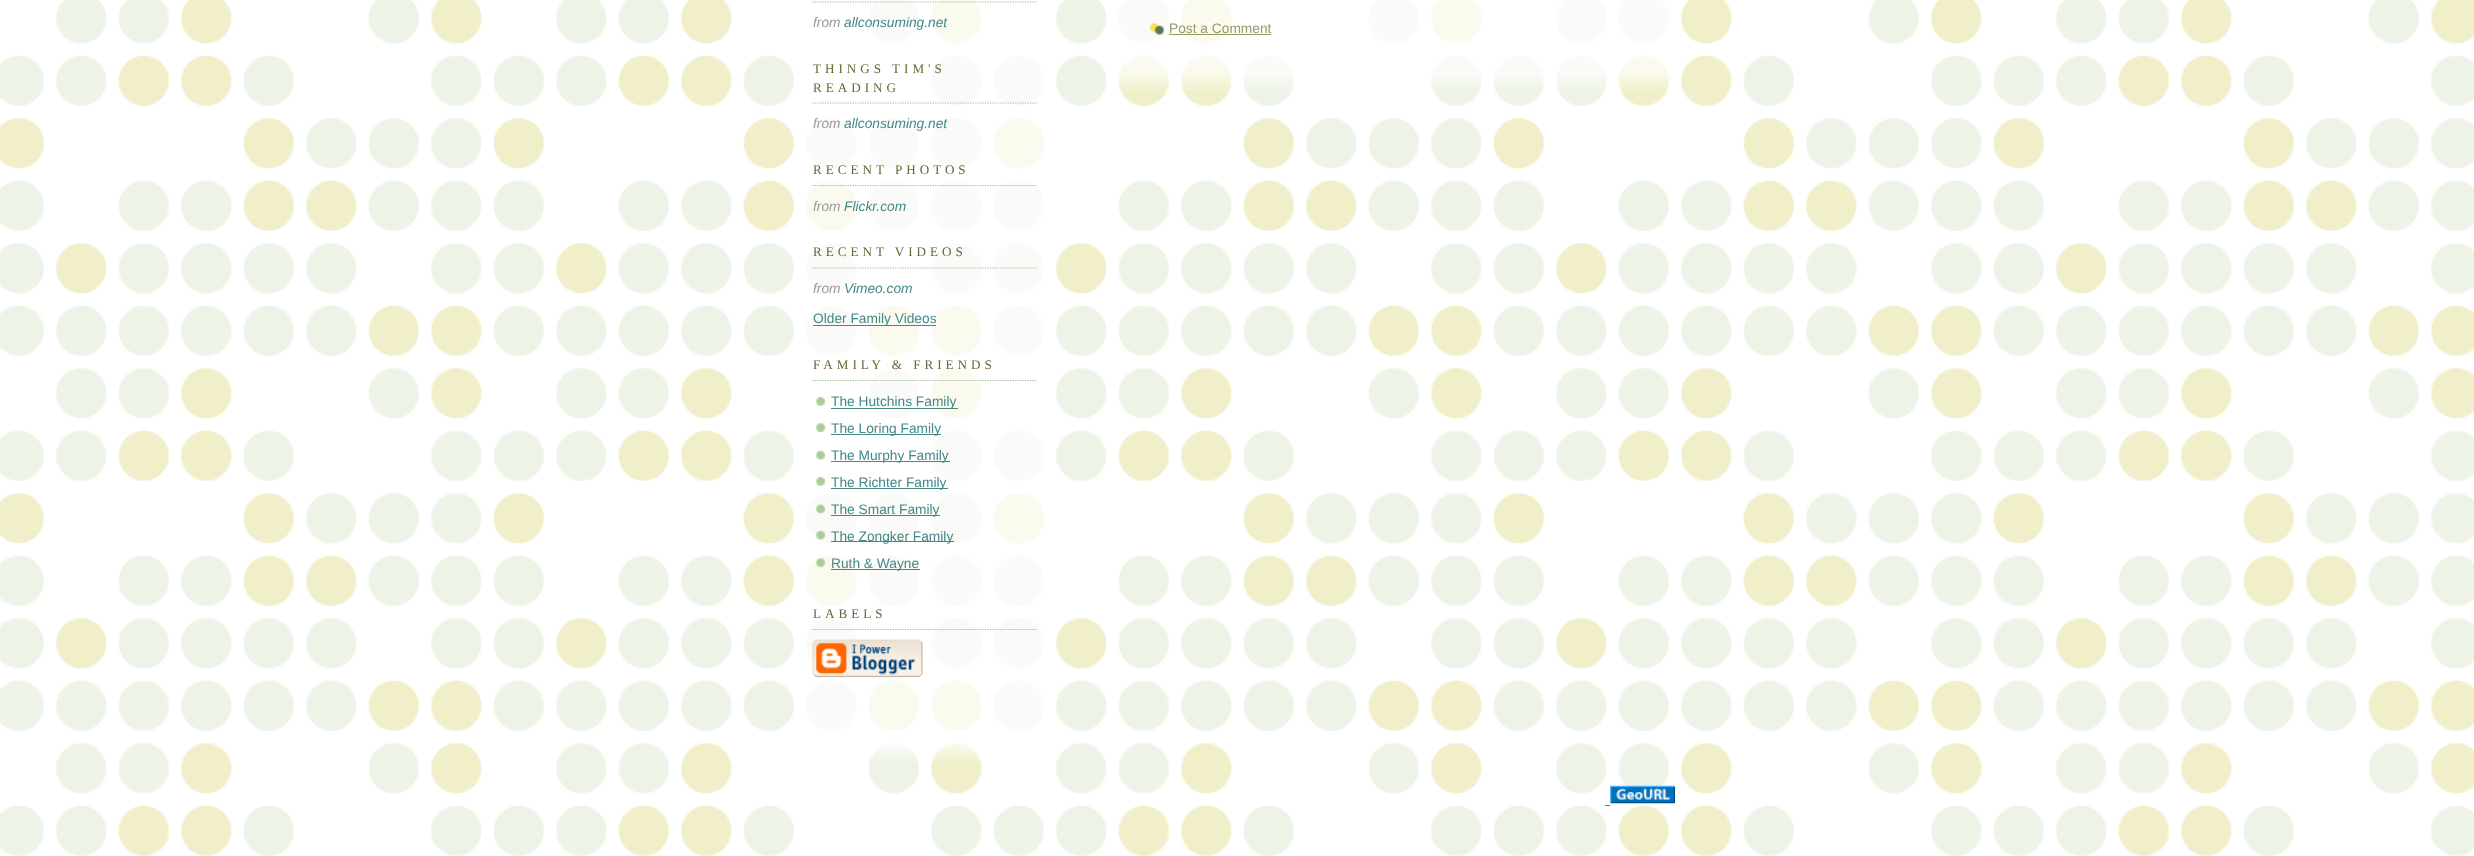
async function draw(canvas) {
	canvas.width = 2474;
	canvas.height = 856;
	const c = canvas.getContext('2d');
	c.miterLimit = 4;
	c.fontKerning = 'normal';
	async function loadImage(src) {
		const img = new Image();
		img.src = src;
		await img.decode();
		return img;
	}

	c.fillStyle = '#fff';
	c.fillRect(0, 0, 2474, 856);
	c.drawImage(await loadImage('img1.png'), 0, 0, 2474, 856);
	c.drawImage(await loadImage('img2.png'), 871, 743, 109, 20);
	c.drawImage(await loadImage('img3.png'), 806, 0, 238, 731);
	c.beginPath();
	c.moveTo(812.5, 2);
	c.lineTo(1037.5, 2);
	c.strokeStyle = '#9b9';
	c.lineWidth = 1.2;
	c.setLineDash([1.25, 1.25]);
	c.stroke();
	c.font = 'italic 13.75px Liberation Sans';
	c.fillStyle = '#999';
	c.fillText('from', 813, 27);
	c.fillStyle = '#488';
	c.fillText('allconsuming.net', 844, 27);
	c.beginPath();
	c.moveTo(812.5, 103);
	c.lineTo(1037.5, 103);
	c.stroke();
	c.letterSpacing = '4px';
	c.font = '13.1px Liberation Serif';
	c.fillStyle = '#663';
	c.fillText('THINGS TIM\'S', 813, 73);
	c.fillText('READING', 813, 92);
	c.letterSpacing = '0px';
	c.font = 'italic 13.75px Liberation Sans';
	c.fillStyle = '#999';
	c.fillText('from', 813, 128);
	c.fillStyle = '#488';
	c.fillText('allconsuming.net', 844, 128);
	c.beginPath();
	c.moveTo(812.5, 185.5);
	c.lineTo(1037.5, 185.5);
	c.stroke();
	c.letterSpacing = '4px';
	c.font = '13.1px Liberation Serif';
	c.fillStyle = '#663';
	c.fillText('RECENT PHOTOS', 813, 174);
	c.letterSpacing = '0px';
	c.font = 'italic 13.75px Liberation Sans';
	c.fillStyle = '#999';
	c.fillText('from', 813, 211);
	c.fillStyle = '#488';
	c.fillText('Flickr.com', 844, 211);
	c.beginPath();
	c.moveTo(812.5, 268);
	c.lineTo(1037.5, 268);
	c.stroke();
	c.letterSpacing = '4px';
	c.font = '13.1px Liberation Serif';
	c.fillStyle = '#663';
	c.fillText('RECENT VIDEOS', 813, 256);
	c.letterSpacing = '0px';
	c.font = 'italic 13.75px Liberation Sans';
	c.fillStyle = '#999';
	c.fillText('from', 813, 293);
	c.fillStyle = '#488';
	c.fillText('Vimeo.com', 844, 293);
	c.fillRect(813, 325, 123, 1);
	c.font = '13.75px Liberation Sans';
	c.fillText('Older Family Videos', 813, 323);
	c.beginPath();
	c.moveTo(812.5, 380.5);
	c.lineTo(1037.5, 380.5);
	c.stroke();
	c.letterSpacing = '4px';
	c.font = '13.1px Liberation Serif';
	c.fillStyle = '#663';
	c.fillText('FAMILY & FRIENDS', 813, 369);
	c.drawImage(await loadImage('img4.png'), 816, 397, 9, 9);
	c.fillStyle = '#488';
	c.fillRect(831, 408, 127, 1);
	c.letterSpacing = '0px';
	c.font = '13.75px Liberation Sans';
	c.fillText('The Hutchins Family', 831, 406);
	c.drawImage(await loadImage('img5.png'), 816, 423, 9, 9);
	c.fillRect(831, 434, 110, 1);
	c.fillText('The Loring Family', 831, 433);
	c.drawImage(await loadImage('img6.png'), 816, 450, 9, 10);
	c.fillRect(831, 461, 119, 1);
	c.fillText('The Murphy Family', 831, 460);
	c.drawImage(await loadImage('img4.png'), 816, 477, 9, 9);
	c.fillRect(831, 488, 117, 1);
	c.fillText('The Richter Family', 831, 487);
	c.drawImage(await loadImage('img7.png'), 816, 504, 9, 10);
	c.fillRect(831, 515, 109, 1);
	c.fillText('The Smart Family', 831, 514);
	c.drawImage(await loadImage('img8.png'), 816, 530, 9, 10);
	c.fillRect(831, 541, 123, 1);
	c.fillText('The Zongker Family', 831, 541);
	c.drawImage(await loadImage('img9.png'), 816, 558, 9, 9);
	c.fillRect(831, 569, 89, 1);
	c.fillText('Ruth & Wayne', 831, 568);
	c.beginPath();
	c.moveTo(812.5, 629.5);
	c.lineTo(1037.5, 629.5);
	c.stroke();
	c.letterSpacing = '4px';
	c.font = '13.1px Liberation Serif';
	c.fillStyle = '#663';
	c.fillText('LABELS', 813, 618);
	c.drawImage(await loadImage('img10.png'), 812, 639, 111, 39);
	c.drawImage(await loadImage('img11.png'), 1118, 70, 551, 21);
	c.drawImage(await loadImage('img12.png'), 1119, 0, 550, 71);
	c.drawImage(await loadImage('img13.png'), 1150, 23, 14, 12);
	c.letterSpacing = '0px';
	c.font = '13.75px Liberation Sans';
	c.fillStyle = '#996';
	c.fillText('Post a Comment', 1169, 33);
	c.fillRect(1169, 34, 102, 1);
	c.drawImage(await loadImage('img14.png'), 1610, 785, 65, 19);
	c.fillStyle = '#488';
	c.fillRect(1605, 805, 5, 1);
}

draw(document.querySelector('canvas'));
